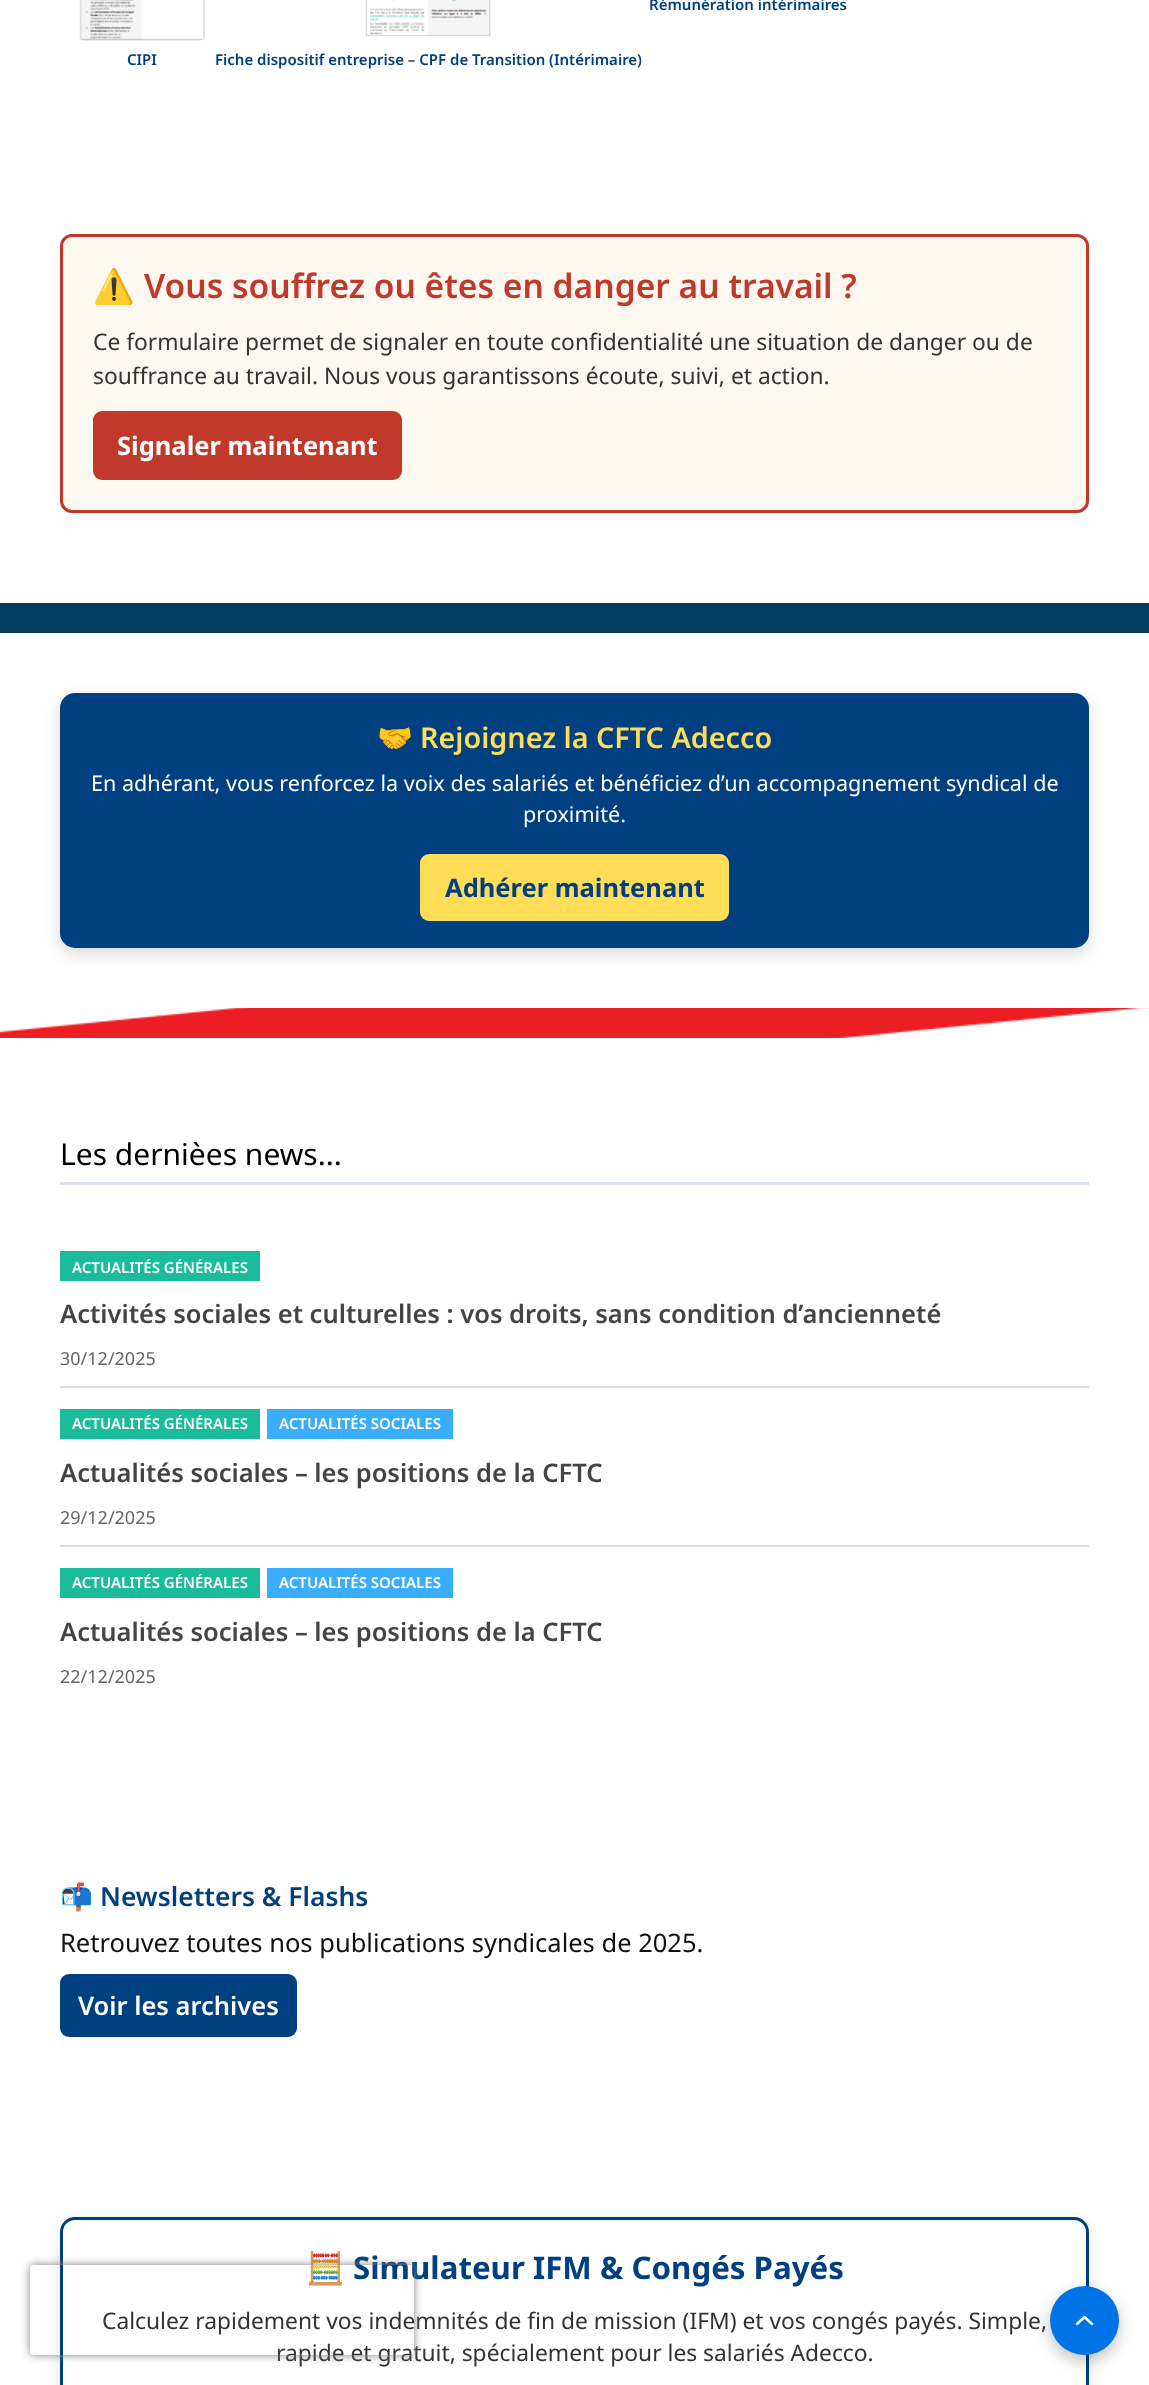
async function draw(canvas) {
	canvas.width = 1149;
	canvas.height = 2385;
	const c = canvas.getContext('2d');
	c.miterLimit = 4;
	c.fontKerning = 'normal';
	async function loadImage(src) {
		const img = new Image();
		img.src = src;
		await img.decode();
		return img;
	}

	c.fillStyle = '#fff';
	c.fillRect(0, 0, 1149, 2385);
	c.drawImage(await loadImage('img1.png'), 0, 603, 1149, 435);
	c.font = '600 15px Noto Sans';
	c.fillStyle = '#004080';
	c.fillText('Rémunération intérimaires', 649, 10);
	c.drawImage(await loadImage('img2.png'), 79, 0, 126, 41);
	c.fillText('CIPI', 127, 65);
	c.drawImage(await loadImage('img3.png'), 365, 0, 126, 37);
	c.fillText('Fiche dispositif entreprise – CPF de Transition (Intérimaire)', 215, 65);
	c.fillStyle = '#fff8f0';
	c.beginPath();
	c.roundRect(61.5, 235.5, 1026, 276, 10.5);
	c.fill();
	c.strokeStyle = '#c0392b';
	c.lineWidth = 3;
	c.stroke();
	c.font = 'bold 33.6px Noto Color Emoji';
	c.fillStyle = '#c0392b';
	c.fillText('⚠️', 93, 298);
	c.font = '600 33.6px Noto Sans';
	c.fillText('Vous souffrez ou êtes en danger au travail ?', 144, 298);
	c.font = '22.8px Noto Sans';
	c.fillStyle = '#333';
	c.fillText('Ce formulaire permet de signaler en toute confidentialité une situation de danger ou de', 93, 350);
	c.fillText('souffrance au travail. Nous vous garantissons écoute, suivi, et action.', 93, 384);
	c.fillStyle = '#c0392b';
	c.beginPath();
	c.roundRect(93, 411, 309, 69, 9);
	c.fill();
	c.font = 'bold 25.5px Noto Sans';
	c.fillStyle = '#fff';
	c.fillText('Signaler maintenant', 117, 455);
	c.fillRect(0, 633, 1149, 375);
	c.fillStyle = '#00000026';
	c.filter = 'blur(7.5px)';
	c.beginPath();
	c.roundRect(60, 699, 1029, 255, 15);
	c.fill();
	c.filter = 'none';
	c.fillStyle = '#004080';
	c.beginPath();
	c.roundRect(60, 693, 1029, 255, 15);
	c.fill();
	c.font = 'bold 28.75px Noto Color Emoji';
	c.fillStyle = '#ffdd57';
	c.fillText('🤝', 377, 748);
	c.font = '600 28.75px Noto Sans';
	c.fillText('Rejoignez la CFTC Adecco', 420, 748);
	c.font = '21.6px Noto Sans';
	c.fillStyle = '#fff';
	c.fillText('En adhérant, vous renforcez la voix des salariés et bénéficiez d’un accompagnement syndical de', 91, 791);
	c.fillText('proximité.', 523, 822);
	c.fillStyle = '#ffdd57';
	c.beginPath();
	c.roundRect(420, 854, 309, 67, 9);
	c.fill();
	c.font = 'bold 25.5px Noto Sans';
	c.fillStyle = '#004080';
	c.fillText('Adhérer maintenant', 445, 897);
	c.fillStyle = '#d9e2ec';
	c.fillRect(60, 1182, 1029, 3);
	c.font = '30px Noto Sans';
	c.fillStyle = '#000';
	c.fillText('Les dernièes news...', 60, 1165);
	c.fillStyle = '#ddd';
	c.fillRect(60, 1386, 1029, 2);
	c.fillStyle = '#1abc9c';
	c.fillRect(60, 1251, 200, 30);
	c.font = '600 15px Noto Sans';
	c.fillStyle = '#fff';
	c.fillText('ACTUALITÉS GÉNÉRALES', 72, 1273);
	c.font = '600 25.5px Noto Sans';
	c.fillStyle = '#444';
	c.fillText('Activités sociales et culturelles : vos droits, sans condition d’ancienneté', 60, 1323);
	c.font = '18px Noto Sans';
	c.fillStyle = '#666';
	c.fillText('30/12/2025', 60, 1365);
	c.fillStyle = '#ddd';
	c.fillRect(60, 1545, 1029, 2);
	c.fillStyle = '#1abc9c';
	c.fillRect(60, 1409, 200, 30);
	c.font = '600 15px Noto Sans';
	c.fillStyle = '#fff';
	c.fillText('ACTUALITÉS GÉNÉRALES', 72, 1429);
	c.fillStyle = '#3aadff';
	c.fillRect(267, 1409, 186, 30);
	c.fillStyle = '#fff';
	c.fillText('ACTUALITÉS SOCIALES', 279, 1429);
	c.font = '600 25.5px Noto Sans';
	c.fillStyle = '#444';
	c.fillText('Actualités sociales – les positions de la CFTC', 60, 1482);
	c.font = '18px Noto Sans';
	c.fillStyle = '#666';
	c.fillText('29/12/2025', 60, 1524);
	c.fillStyle = '#1abc9c';
	c.fillRect(60, 1568, 200, 30);
	c.font = '600 15px Noto Sans';
	c.fillStyle = '#fff';
	c.fillText('ACTUALITÉS GÉNÉRALES', 72, 1588);
	c.fillStyle = '#3aadff';
	c.fillRect(267, 1568, 186, 30);
	c.fillStyle = '#fff';
	c.fillText('ACTUALITÉS SOCIALES', 279, 1588);
	c.font = '600 25.5px Noto Sans';
	c.fillStyle = '#444';
	c.fillText('Actualités sociales – les positions de la CFTC', 60, 1641);
	c.font = '18px Noto Sans';
	c.fillStyle = '#666';
	c.fillText('22/12/2025', 60, 1683);
	c.font = 'bold 26.4px Noto Color Emoji';
	c.fillStyle = '#004080';
	c.fillText('📬', 60, 1906);
	c.font = '600 26.4px Noto Sans';
	c.fillText('Newsletters & Flashs', 100, 1906);
	c.font = '25.5px Noto Sans';
	c.fillStyle = '#111';
	c.fillText('Retrouvez toutes nos publications syndicales de 2025.', 60, 1952);
	c.fillStyle = '#004080';
	c.beginPath();
	c.roundRect(60, 1974, 237, 63, 9);
	c.fill();
	c.font = '600 25.5px Noto Sans';
	c.fillStyle = '#fff';
	c.fillText('Voir les archives', 78, 2015);
	c.fillStyle = '#0000001a';
	c.filter = 'blur(7.5px)';
	c.beginPath();
	c.roundRect(60, 2223, 1029, 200, 15);
	c.fill();
	c.filter = 'none';
	c.fillStyle = '#fff';
	c.beginPath();
	c.roundRect(61.5, 2218.5, 1026, 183, 13.5);
	c.fill();
	c.strokeStyle = '#004080';
	c.stroke();
	c.font = 'bold 31.25px Noto Color Emoji';
	c.fillStyle = '#004080';
	c.fillText('🧮', 306, 2279);
	c.font = 'bold 31.25px Noto Sans';
	c.fillText('Simulateur IFM & Congés Payés', 353, 2279);
	c.font = '22.8px Noto Sans';
	c.fillStyle = '#333';
	c.fillText('Calculez rapidement vos indemnités de fin de mission (IFM) et vos congés payés. Simple,', 102, 2329);
	c.fillText('rapide et gratuit, spécialement pour les salariés Adecco.', 276, 2361);
	c.save();
	c.beginPath();
	c.moveTo(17, 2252);
	c.lineTo(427, 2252);
	c.lineTo(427, 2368);
	c.lineTo(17, 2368);
	c.closePath();
	c.moveTo(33, 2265);
	c.lineTo(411, 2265);
	c.bezierCurveTo(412.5, 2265, 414, 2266.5, 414, 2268);
	c.lineTo(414, 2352);
	c.bezierCurveTo(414, 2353.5, 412.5, 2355, 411, 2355);
	c.lineTo(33, 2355);
	c.bezierCurveTo(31.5, 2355, 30, 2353.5, 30, 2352);
	c.lineTo(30, 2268);
	c.bezierCurveTo(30, 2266.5, 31.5, 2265, 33, 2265);
	c.closePath();
	c.clip('evenodd');
	c.fillStyle = '#808080';
	c.filter = 'blur(4px)';
	c.beginPath();
	c.roundRect(30, 2265, 384, 90, 3);
	c.fill();
	c.filter = 'none';
	c.restore();
	c.fillStyle = '#00000040';
	c.filter = 'blur(7.5px)';
	c.beginPath();
	c.roundRect(1050, 2292, 69, 69, 34.5);
	c.fill();
	c.filter = 'none';
	c.fillStyle = '#0073e6';
	c.beginPath();
	c.arc(1084.5, 2320.5, 34.5, 0, 2 * Math.PI);
	c.fill();
	c.beginPath();
	c.moveTo(1092, 2324);
	c.lineTo(1084.5, 2317);
	c.lineTo(1077, 2324);
	c.strokeStyle = '#fff';
	c.lineWidth = 2.5;
	c.lineCap = 'round';
	c.lineJoin = 'round';
	c.stroke();
}

draw(document.querySelector('canvas'));
